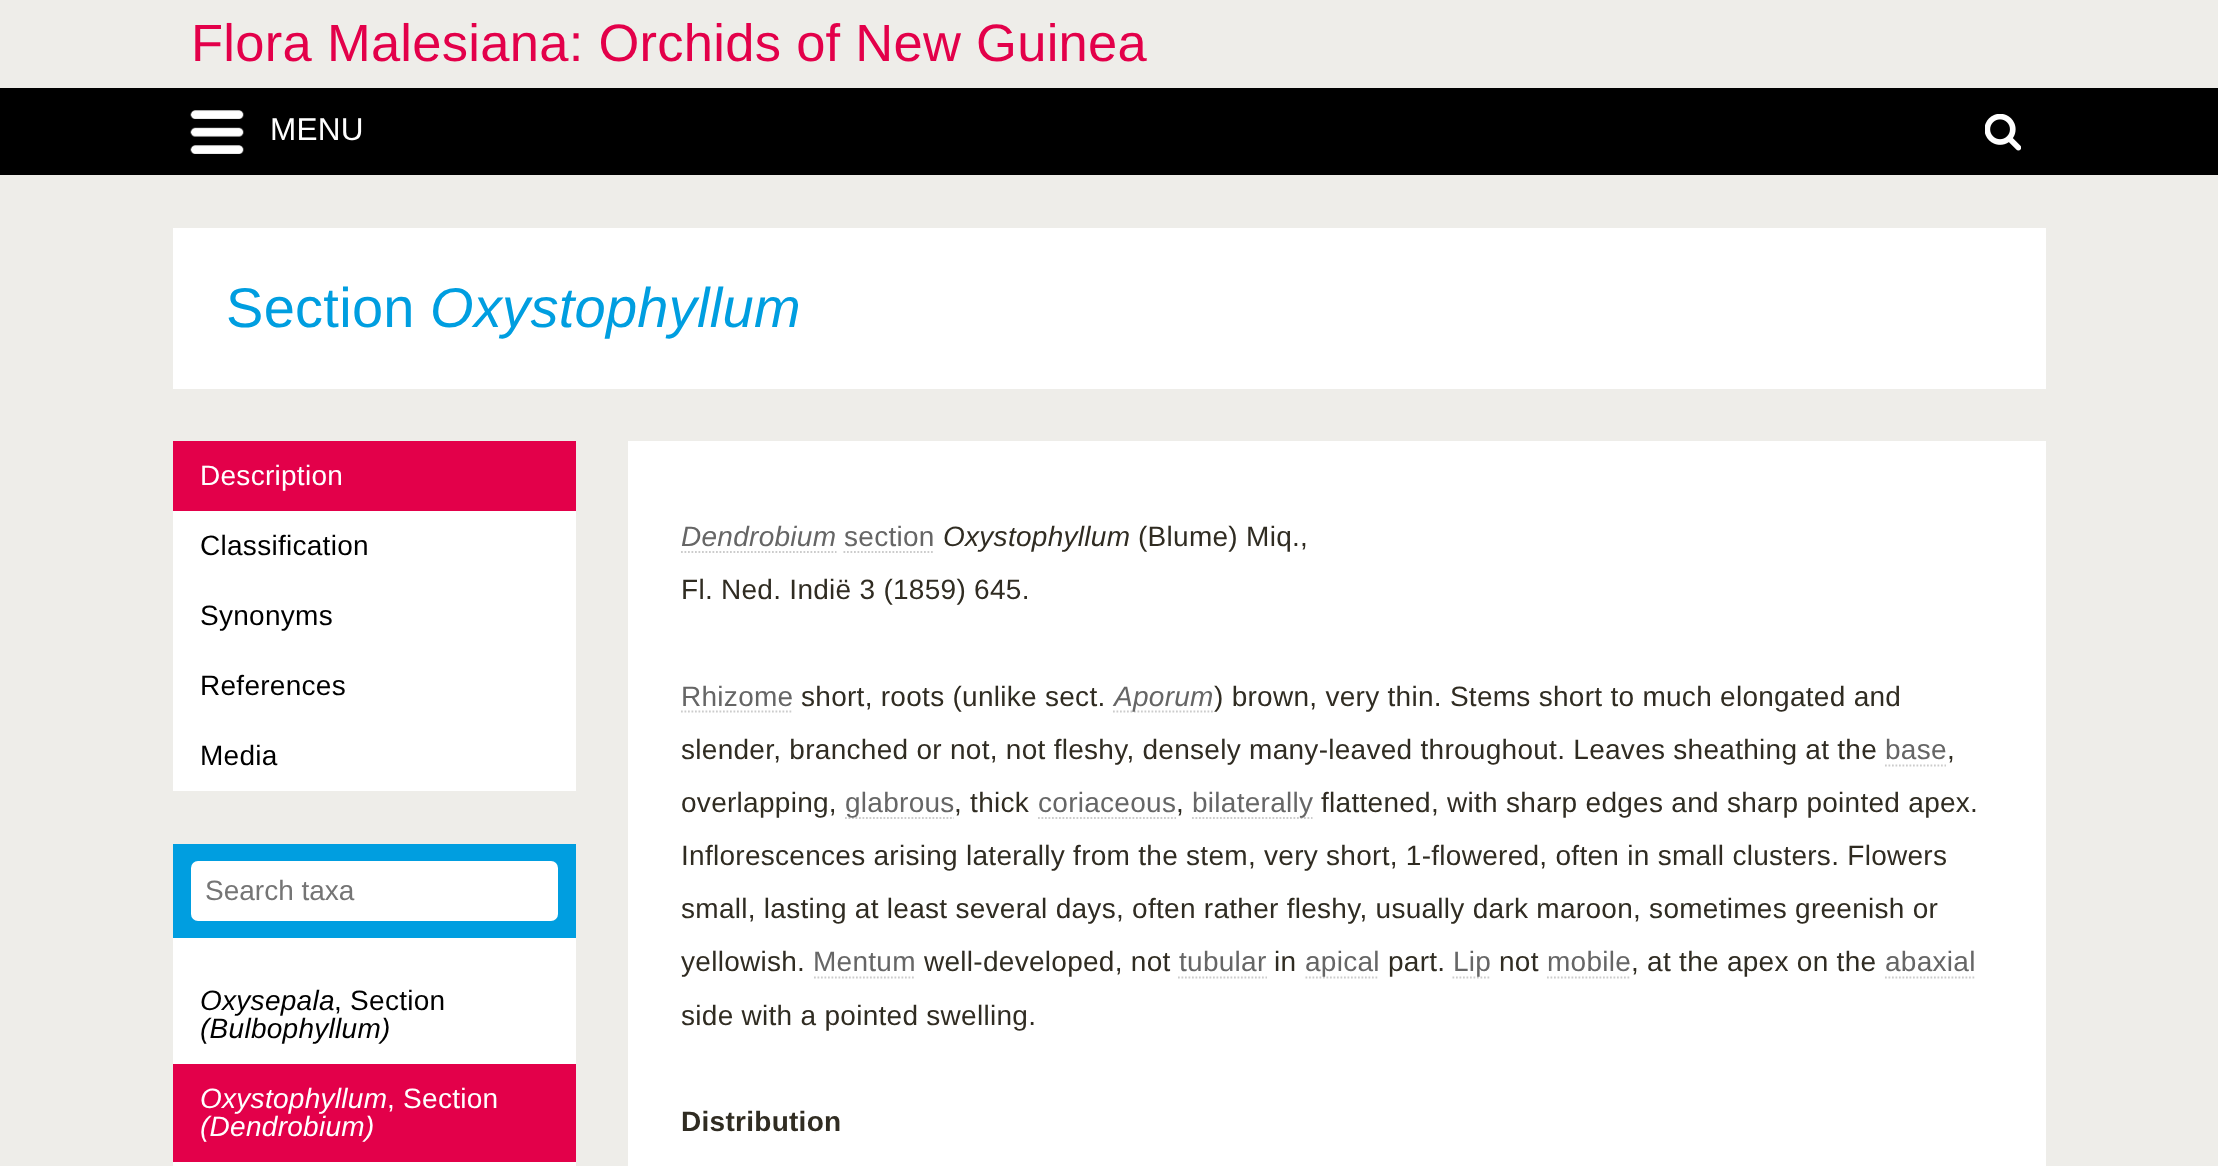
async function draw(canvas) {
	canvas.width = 2218;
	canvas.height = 1166;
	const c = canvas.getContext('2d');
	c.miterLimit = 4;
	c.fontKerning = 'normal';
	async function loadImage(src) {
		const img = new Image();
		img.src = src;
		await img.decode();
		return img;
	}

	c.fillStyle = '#eeede9';
	c.fillRect(0, 0, 2218, 1166);
	c.letterSpacing = '0.28px';
	c.font = '52.5px Liberation Sans';
	c.fillStyle = '#e3004a';
	c.fillText('Flora Malesiana: Orchids of New Guinea', 191, 61);
	c.fillStyle = '#000';
	c.fillRect(0, 88, 2218, 87);
	c.drawImage(await loadImage('img1.png'), 190, 110, 54, 44);
	c.font = '31.5px Liberation Sans';
	c.fillStyle = '#fff';
	c.fillText('MENU', 270, 140);
	c.drawImage(await loadImage('img2.png'), 1985, 114, 36, 37);
	c.fillRect(173, 228, 1873, 161);
	c.font = '56px Liberation Sans';
	c.fillStyle = '#009ee0';
	c.fillText('Section', 226, 327);
	c.font = 'italic 56px Liberation Sans';
	c.fillText('Oxystophyllum', 430, 327);
	c.fillStyle = '#fff';
	c.fillRect(173, 511, 403, 280);
	c.fillStyle = '#e3004a';
	c.fillRect(173, 441, 403, 70);
	c.font = '28px Liberation Sans';
	c.fillStyle = '#fff';
	c.fillText('Description', 200, 485);
	c.fillStyle = '#000';
	for (const [text, x, y] of [
		['Classification', 200, 555],
		['Synonyms', 200, 625],
		['References', 200, 695],
		['Media', 200, 765],
	]) {
		c.fillText(text, x, y);
	}
	c.fillStyle = '#009ee0';
	c.fillRect(173, 844, 403, 94);
	c.fillStyle = '#fff';
	c.beginPath();
	c.roundRect(191, 861, 367, 60, 7);
	c.fill();
	c.letterSpacing = '0px';
	c.fillStyle = '#757575';
	c.fillText('Search taxa', 205, 900);
	c.fillStyle = '#fff';
	c.fillRect(173, 938, 403, 228);
	c.letterSpacing = '0.28px';
	c.font = 'italic 28px Liberation Sans';
	c.fillStyle = '#000';
	c.fillText('Oxysepala', 200, 1010);
	c.font = '28px Liberation Sans';
	c.fillText(', Section', 334, 1010);
	c.font = 'italic 28px Liberation Sans';
	c.fillText('(Bulbophyllum)', 200, 1038);
	c.fillStyle = '#e3004a';
	c.fillRect(173, 1064, 403, 98);
	c.fillStyle = '#fff';
	c.fillText('Oxystophyllum', 200, 1108);
	c.font = '28px Liberation Sans';
	c.fillText(', Section', 387, 1108);
	c.font = 'italic 28px Liberation Sans';
	c.fillText('(Dendrobium)', 200, 1136);
	c.fillRect(628, 441, 1418, 725);
	c.fillStyle = '#666';
	c.fillText('Dendrobium', 681, 546);
	c.beginPath();
	c.moveTo(681, 552);
	c.lineTo(836.5, 552);
	c.strokeStyle = '#ccc';
	c.lineWidth = 1.8;
	c.setLineDash([1.75, 1.75]);
	c.stroke();
	c.font = '28px Liberation Sans';
	c.fillText('section', 844, 546);
	c.beginPath();
	c.moveTo(843.5, 552);
	c.lineTo(934.5, 552);
	c.stroke();
	c.font = 'italic 28px Liberation Sans';
	c.fillStyle = '#302c22';
	c.fillText('Oxystophyllum', 943, 546);
	c.font = '28px Liberation Sans';
	c.fillText('(Blume) Miq.,', 1138, 546);
	c.fillText('Fl. Ned. Indië 3 (1859) 645.', 681, 599);
	c.fillStyle = '#666';
	c.fillText('Rhizome', 681, 706);
	c.beginPath();
	c.moveTo(681, 711.5);
	c.lineTo(793, 711.5);
	c.stroke();
	c.fillStyle = '#302c22';
	c.fillText('short, roots (unlike sect.', 801, 706);
	c.beginPath();
	c.moveTo(1113, 711.5);
	c.lineTo(1213, 711.5);
	c.stroke();
	c.font = 'italic 28px Liberation Sans';
	c.fillStyle = '#666';
	c.fillText('Aporum', 1114, 706);
	c.font = '28px Liberation Sans';
	c.fillStyle = '#302c22';
	c.fillText(') brown, very thin. Stems short to much elongated and', 1214, 706);
	c.fillText('slender, branched or not, not fleshy, densely many-leaved throughout. Leaves sheathing at the', 681, 759);
	c.fillStyle = '#666';
	c.fillText('base', 1885, 759);
	c.beginPath();
	c.moveTo(1885, 765.5);
	c.lineTo(1946, 765.5);
	c.stroke();
	c.fillStyle = '#302c22';
	c.fillText(',', 1947, 759);
	c.fillText('overlapping,', 681, 812);
	c.beginPath();
	c.moveTo(845, 818);
	c.lineTo(954, 818);
	c.stroke();
	c.fillStyle = '#666';
	c.fillText('glabrous', 845, 812);
	c.fillStyle = '#302c22';
	c.fillText(', thick', 954, 812);
	c.fillStyle = '#666';
	c.fillText('coriaceous', 1038, 812);
	c.beginPath();
	c.moveTo(1038, 818);
	c.lineTo(1176, 818);
	c.stroke();
	c.fillStyle = '#302c22';
	c.fillText(',', 1176, 812);
	c.beginPath();
	c.moveTo(1192, 818);
	c.lineTo(1312.5, 818);
	c.stroke();
	c.fillStyle = '#666';
	c.fillText('bilaterally', 1192, 812);
	c.fillStyle = '#302c22';
	for (const [text, x, y] of [
		['flattened, with sharp edges and sharp pointed apex.', 1321, 812],
		['Inflorescences arising laterally from the stem, very short, 1-flowered, often in small clusters. Flowers', 681, 865],
		['small, lasting at least several days, often rather fleshy, usually dark maroon, sometimes greenish or', 681, 918],
		['yellowish.', 681, 971],
	]) {
		c.fillText(text, x, y);
	}
	c.fillStyle = '#666';
	c.fillText('Mentum', 813, 971);
	c.beginPath();
	c.moveTo(814, 977.5);
	c.lineTo(915, 977.5);
	c.stroke();
	c.fillStyle = '#302c22';
	c.fillText('well-developed, not', 924, 971);
	c.fillStyle = '#666';
	c.fillText('tubular', 1179, 971);
	c.beginPath();
	c.moveTo(1178, 977.5);
	c.lineTo(1267, 977.5);
	c.stroke();
	c.fillStyle = '#302c22';
	c.fillText('in', 1274, 971);
	c.beginPath();
	c.moveTo(1305.5, 977.5);
	c.lineTo(1379, 977.5);
	c.stroke();
	c.fillStyle = '#666';
	c.fillText('apical', 1305, 971);
	c.fillStyle = '#302c22';
	c.fillText('part.', 1388, 971);
	c.beginPath();
	c.moveTo(1452.5, 977.5);
	c.lineTo(1491, 977.5);
	c.stroke();
	c.fillStyle = '#666';
	c.fillText('Lip', 1453, 971);
	c.fillStyle = '#302c22';
	c.fillText('not', 1499, 971);
	c.fillStyle = '#666';
	c.fillText('mobile', 1547, 971);
	c.beginPath();
	c.moveTo(1547, 977.5);
	c.lineTo(1631, 977.5);
	c.stroke();
	c.fillStyle = '#302c22';
	c.fillText(', at the apex on the', 1631, 971);
	c.fillStyle = '#666';
	c.fillText('abaxial', 1885, 971);
	c.beginPath();
	c.moveTo(1885, 977.5);
	c.lineTo(1976, 977.5);
	c.stroke();
	c.fillStyle = '#302c22';
	c.fillText('side with a pointed swelling.', 681, 1025);
	c.font = 'bold 28px Liberation Sans';
	c.fillText('Distribution', 681, 1131);
}

draw(document.querySelector('canvas'));
